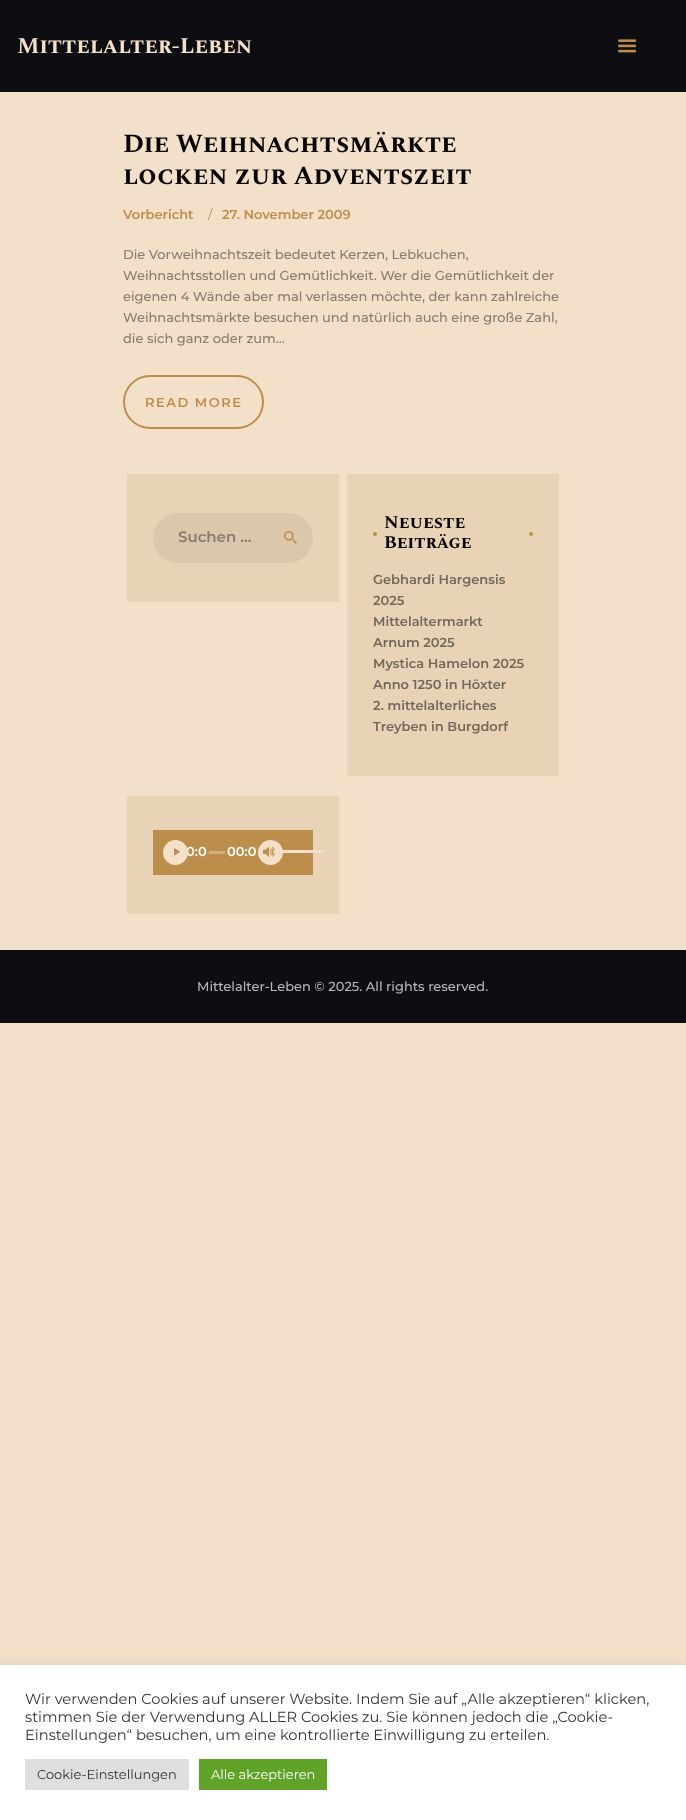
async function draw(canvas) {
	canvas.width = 686;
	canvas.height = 1820;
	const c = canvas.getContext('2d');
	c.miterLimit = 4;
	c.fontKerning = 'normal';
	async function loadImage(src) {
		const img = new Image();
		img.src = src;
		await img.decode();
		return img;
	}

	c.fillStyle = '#f2e0c8';
	c.fillRect(0, 0, 686, 1820);
	c.fillStyle = '#0e0d12';
	c.fillRect(0, 0, 686, 92);
	c.font = 'bold 22.5px Spectral SC';
	c.fillStyle = '#f2e0c8';
	c.fillText('Mittelalter-Leben', 17, 53);
	c.drawImage(await loadImage('img1.png'), 618, 39, 19, 14);
	c.font = 'bold 26px Spectral SC';
	c.fillStyle = '#070301';
	c.fillText('Die Weihnachtsmärkte', 123, 152);
	c.fillText('locken zur Adventszeit', 123, 184);
	c.font = '600 13px Montserrat';
	c.fillStyle = '#bd8d4c';
	c.fillText('Vorbericht', 123, 219);
	c.font = '13px Montserrat';
	c.fillText('/', 208, 219);
	c.font = '600 13px Montserrat';
	c.fillText('27. November 2009', 222, 219);
	c.font = '500 13px Montserrat';
	c.fillStyle = '#877c6d';
	for (const [text, x, y] of [
		['Die Vorweihnachtszeit bedeutet Kerzen, Lebkuchen,', 123, 259],
		['Weihnachtsstollen und Gemütlichkeit. Wer die Gemütlichkeit der', 123, 280],
		['eigenen 4 Wände aber mal verlassen möchte, der kann zahlreiche', 123, 301],
		['Weihnachtsmärkte besuchen und natürlich auch eine große Zahl,', 123, 322],
		['die sich ganz oder zum…', 123, 343],
	]) {
		c.fillText(text, x, y);
	}
	c.beginPath();
	c.roundRect(124, 376, 139, 52, 26);
	c.strokeStyle = '#bd8d4c';
	c.lineWidth = 2;
	c.stroke();
	c.letterSpacing = '1.5px';
	c.font = '600 13px Montserrat';
	c.fillStyle = '#bd8d4c';
	c.fillText('READ MORE', 145, 407);
	c.fillStyle = '#e8d3b6';
	c.fillRect(127, 474, 212, 128);
	c.fillStyle = '#dbc7ab';
	c.beginPath();
	c.roundRect(154, 514, 158, 48, 24);
	c.fill();
	c.strokeStyle = '#dbc7ab';
	c.stroke();
	c.letterSpacing = '0px';
	c.font = '600 15px Montserrat';
	c.fillStyle = '#877c6d';
	c.fillText('Suchen …', 178, 542);
	c.drawImage(await loadImage('img2.png'), 284, 531, 13, 13);
	c.fillStyle = '#e8d3b6';
	c.fillRect(347, 474, 212, 302);
	c.font = 'bold 18px Spectral SC';
	c.fillStyle = '#070301';
	c.fillText('Neueste', 384, 528);
	c.fillStyle = '#bd8d4c';
	c.beginPath();
	c.arc(375, 534, 2, 0, 2 * Math.PI);
	c.fill();
	c.fillStyle = '#070301';
	c.fillText('Beiträge', 384, 548);
	c.fillStyle = '#bd8d4c';
	c.beginPath();
	c.arc(531, 534, 2, 0, 2 * Math.PI);
	c.fill();
	c.font = '600 13px Montserrat';
	c.fillStyle = '#71675a';
	for (const [text, x, y] of [
		['Gebhardi Hargensis', 373, 584],
		['2025', 373, 605],
		['Mittelaltermarkt', 373, 626],
		['Arnum 2025', 373, 647],
		['Mystica Hamelon 2025', 373, 668],
		['Anno 1250 in Höxter', 373, 689],
		['2. mittelalterliches', 373, 710],
		['Treyben in Burgdorf', 373, 731],
	]) {
		c.fillText(text, x, y);
	}
	c.fillStyle = '#e8d3b6';
	c.fillRect(127, 796, 212, 118);
	c.fillStyle = '#bd8d4c';
	c.fillRect(153, 830, 160, 45);
	c.fillStyle = '#fff';
	c.fillText('0:0', 186, 856);
	c.fillStyle = '#f2e0c8';
	c.beginPath();
	c.arc(175.5, 852.5, 12.5, 0, 2 * Math.PI);
	c.fill();
	c.drawImage(await loadImage('img3.png'), 174, 848, 6, 8);
	c.fillStyle = '#d1af82';
	c.fillRect(209, 851, 16, 3);
	c.fillStyle = '#fff';
	c.fillText('00:0', 227, 856);
	c.fillStyle = '#f2e0c8';
	c.beginPath();
	c.arc(270.5, 852.5, 12.5, 0, 2 * Math.PI);
	c.fill();
	c.drawImage(await loadImage('img4.png'), 263, 846, 12, 11);
	c.fillRect(274, 850, 50, 3);
	c.fillStyle = '#0e0d12';
	c.fillRect(0, 950, 686, 73);
	c.font = '500 13px Montserrat';
	c.fillStyle = '#b7b7b7';
	c.fillText('Mittelalter-Leben © 2025. All rights reserved.', 197, 991);
	c.fillStyle = '#acabab4d';
	c.filter = 'blur(5px)';
	c.beginPath();
	c.rect(0, 1664, 686, 155);
	c.fill();
	c.filter = 'none';
	c.fillStyle = '#fff';
	c.fillRect(0, 1665, 686, 155);
	c.font = '14.65px Montserrat';
	c.fillStyle = '#333';
	for (const [text, x, y] of [
		['Wir verwenden Cookies auf unserer Website. Indem Sie auf „Alle akzeptieren“ klicken,', 25, 1704],
		['stimmen Sie der Verwendung ALLER Cookies zu. Sie können jedoch die „Cookie-', 25, 1722],
		['Einstellungen“ besuchen, um eine kontrollierte Einwilligung zu erteilen.', 25, 1740],
	]) {
		c.fillText(text, x, y);
	}
	c.fillStyle = '#dedfe0';
	c.fillRect(25, 1759, 164, 31);
	c.font = '13px Montserrat';
	c.fillStyle = '#333';
	c.fillText('Cookie-Einstellungen', 37, 1779);
	c.fillStyle = '#61a229';
	c.fillRect(199, 1759, 128, 31);
	c.fillStyle = '#fff';
	c.fillText('Alle akzeptieren', 211, 1779);
}

draw(document.querySelector('canvas'));
